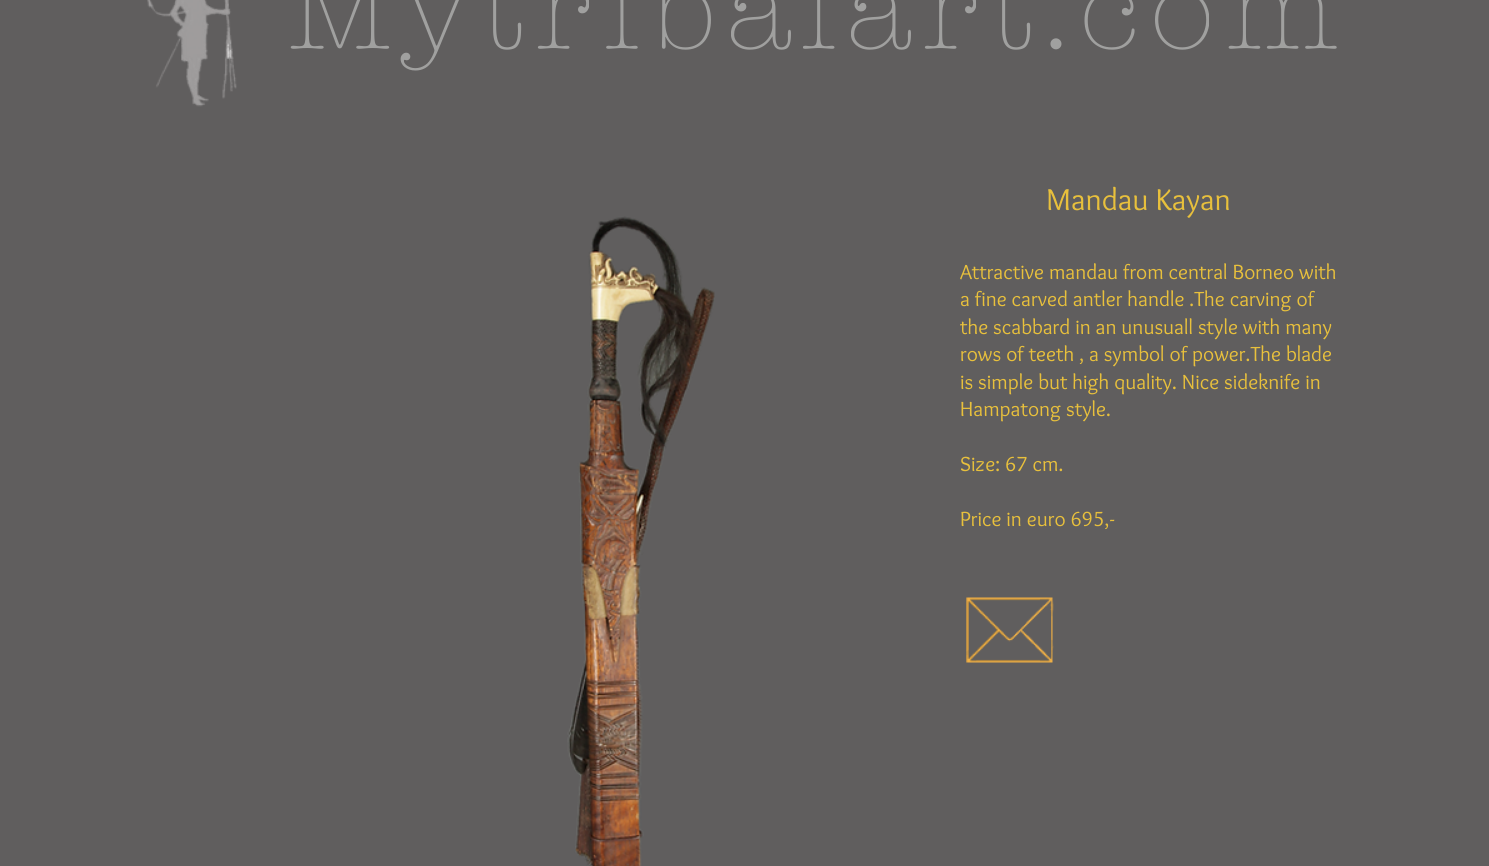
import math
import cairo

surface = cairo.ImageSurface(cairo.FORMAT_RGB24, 1489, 866)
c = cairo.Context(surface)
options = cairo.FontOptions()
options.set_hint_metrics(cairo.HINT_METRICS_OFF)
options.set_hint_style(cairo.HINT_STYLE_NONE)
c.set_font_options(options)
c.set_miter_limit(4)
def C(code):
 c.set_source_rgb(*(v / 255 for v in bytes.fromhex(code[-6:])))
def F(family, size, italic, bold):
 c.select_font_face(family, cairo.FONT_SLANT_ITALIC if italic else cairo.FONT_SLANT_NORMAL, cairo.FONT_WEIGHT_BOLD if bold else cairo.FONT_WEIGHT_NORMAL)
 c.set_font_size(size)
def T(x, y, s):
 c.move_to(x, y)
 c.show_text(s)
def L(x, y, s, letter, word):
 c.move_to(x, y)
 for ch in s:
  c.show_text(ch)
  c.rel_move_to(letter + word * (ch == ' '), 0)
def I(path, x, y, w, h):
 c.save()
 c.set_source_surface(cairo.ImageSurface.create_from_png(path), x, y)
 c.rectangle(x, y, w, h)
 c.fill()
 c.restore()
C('605e5e')
c.paint()
I('1.png',147,0,90,107)
F('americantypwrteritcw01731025 Light',112.5,0,0)
C('a0a09f')
L(287,48,'Mytribalart.com',11.25,0)
F('Overlock',31.25,0,0)
C('e8c03c')
T(1046,210,'Mandau Kayan')
I('2.png',567,216,148,650)
F('Overlock',21.25,0,0)
T(960,279,'Attractive mandau from central Borneo with')
T(960,306,'a fine carved antler handle .The carving of')
T(960,334,'the scabbard in an unusuall style with many')
T(960,361,'rows of teeth , a symbol of power.The blade')
T(960,389,'is simple but high quality. Nice sideknife in')
T(960,416,'Hampatong style.')
T(960,471,'Size: 67 cm.')
T(960,526,'Price in euro 695,-')
I('3.png',966,597,88,66)
surface.write_to_png('o.png')
